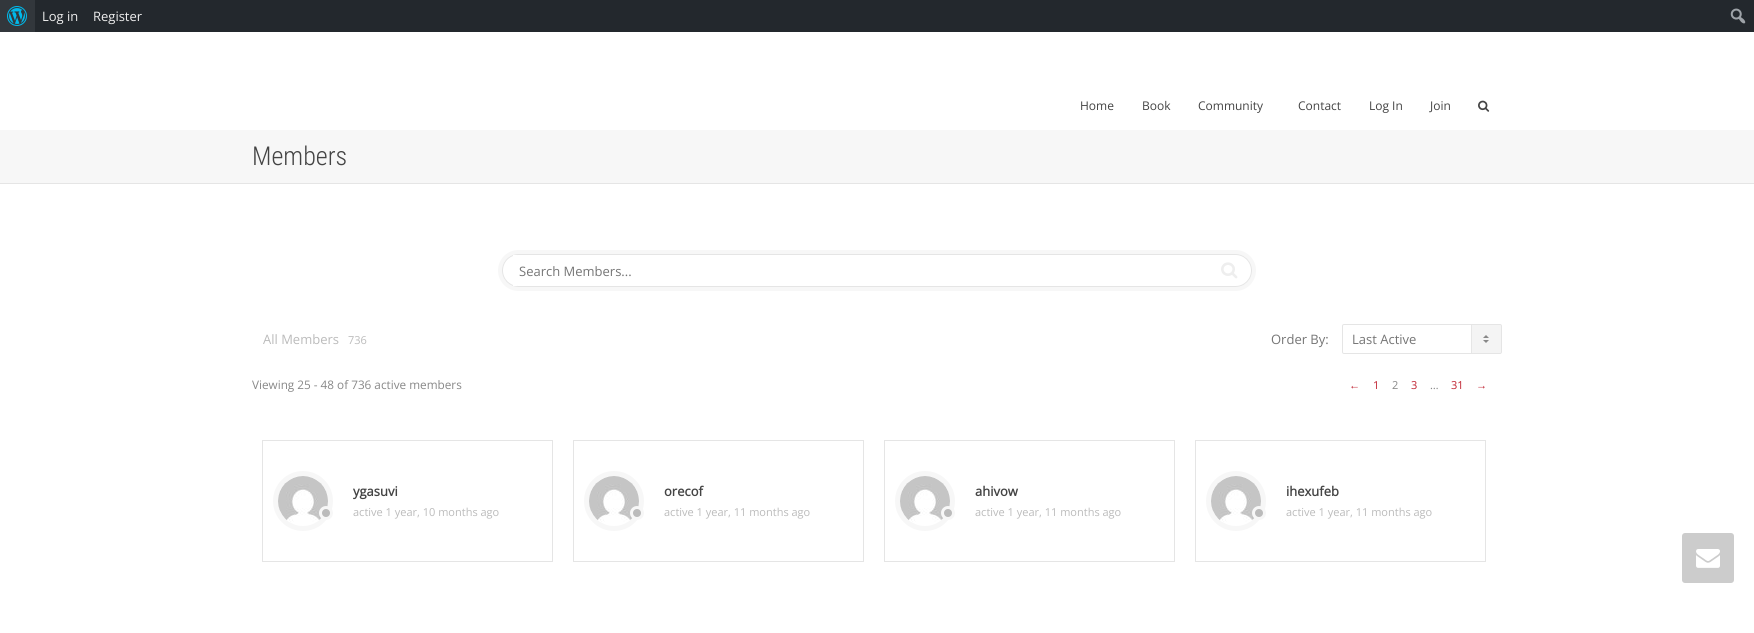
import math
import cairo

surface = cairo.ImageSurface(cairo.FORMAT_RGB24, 1754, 633)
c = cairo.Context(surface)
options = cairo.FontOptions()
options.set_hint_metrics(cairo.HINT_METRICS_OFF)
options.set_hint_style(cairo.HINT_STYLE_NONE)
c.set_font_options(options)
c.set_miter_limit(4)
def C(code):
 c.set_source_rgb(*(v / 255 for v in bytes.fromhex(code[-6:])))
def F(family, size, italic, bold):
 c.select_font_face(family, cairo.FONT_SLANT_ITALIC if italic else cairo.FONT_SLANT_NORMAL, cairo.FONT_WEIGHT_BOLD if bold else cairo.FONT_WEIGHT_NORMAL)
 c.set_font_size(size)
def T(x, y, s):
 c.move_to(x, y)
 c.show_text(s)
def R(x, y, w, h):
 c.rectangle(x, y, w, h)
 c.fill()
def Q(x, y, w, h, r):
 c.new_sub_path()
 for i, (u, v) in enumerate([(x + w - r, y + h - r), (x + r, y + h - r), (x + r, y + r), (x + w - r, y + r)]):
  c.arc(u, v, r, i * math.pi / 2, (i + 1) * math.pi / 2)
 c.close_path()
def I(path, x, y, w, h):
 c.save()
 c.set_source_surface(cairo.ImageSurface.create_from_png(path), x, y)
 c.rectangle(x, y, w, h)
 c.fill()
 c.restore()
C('ffffff')
c.paint()
C('23282d')
R(35,0,1719,32)
C('32373c')
R(0,0,35,32)
I('1.png',7,6,20,20)
F('Open Sans',13,0,0)
C('eeeeee')
T(42,21,'Log in')
T(93,21,'Register')
I('2.png',1730,8,16,16)
F('Open Sans',12,0,0)
C('444444')
T(1080,110,'Home')
T(1142,110,'Book')
T(1198,110,'Community')
T(1298,110,'Contact')
T(1369,110,'Log In')
T(1430,110,'Join')
I('3.png',1478,100,12,12)
C('f7f7f7')
R(0,130,1754,53)
C('e5e5e5')
R(0,183,1754,1)
F('Roboto Condensed Light',26,0,0)
C('444444')
T(252,165,'Members')
Q(500,252,754,37,18.5)
C('f7f7f7')
c.set_line_width(4)
c.stroke()
Q(502.5,254.5,749,32,16)
C('e5e5e5')
c.set_line_width(1)
c.stroke()
C('ffffff')
R(513,255,4,31)
F('Open Sans',13,0,0)
C('757575')
T(519,276,'Search Members...')
I('4.png',1221,262,17,17)
C('bbbbbb')
T(263,344,'All Members')
F('Open Sans',11,0,0)
T(348,344,'736')
F('Open Sans',13,0,0)
C('757575')
T(1271,344,'Order By:')
I('5.png',1471,324,30,30)
Q(1342.5,324.5,159,29,1.5)
C('e5e5e5')
c.stroke()
C('757575')
T(1352,344,'Last Active')
F('Open Sans',11.75,0,0)
C('888888')
T(252,389,'Viewing 25 - 48 of 736 active members')
F('Liberation Serif',11,0,0)
C('bf202f')
T(1349,389,'←')
F('Open Sans',11,0,0)
T(1373,389,'1')
C('888888')
T(1392,389,'2')
C('bf202f')
T(1411,389,'3')
C('888888')
T(1430,389,'…')
C('bf202f')
T(1451,389,'31')
F('Liberation Serif',11,0,0)
T(1476,389,'→')
c.rectangle(262.5,440.5,290,121)
C('e5e5e5')
c.stroke()
c.arc(303,501,27.5,0,2 * math.pi)
C('f7f7f7')
c.set_line_width(5)
c.stroke()
I('6.png',278,476,50,46)
C('bbbbbb')
c.arc(326,513,5.5,0,2 * math.pi)
c.fill_preserve()
C('f7f7f7')
c.set_line_width(3)
c.stroke()
F('Open Sans',13,0,1)
C('444444')
T(353,496,'ygasuvi')
F('Open Sans',11,0,0)
C('bbbbbb')
T(353,516,'active 1 year, 10 months ago')
c.rectangle(573.5,440.5,290,121)
C('e5e5e5')
c.set_line_width(1)
c.stroke()
c.arc(614,501,27.5,0,2 * math.pi)
C('f7f7f7')
c.set_line_width(5)
c.stroke()
I('6.png',589,476,50,46)
C('bbbbbb')
c.arc(637,513,5.5,0,2 * math.pi)
c.fill_preserve()
C('f7f7f7')
c.set_line_width(3)
c.stroke()
F('Open Sans',13,0,1)
C('444444')
T(664,496,'orecof')
F('Open Sans',11,0,0)
C('bbbbbb')
T(664,516,'active 1 year, 11 months ago')
c.rectangle(884.5,440.5,290,121)
C('e5e5e5')
c.set_line_width(1)
c.stroke()
c.arc(925,501,27.5,0,2 * math.pi)
C('f7f7f7')
c.set_line_width(5)
c.stroke()
I('6.png',900,476,50,46)
C('bbbbbb')
c.arc(948,513,5.5,0,2 * math.pi)
c.fill_preserve()
C('f7f7f7')
c.set_line_width(3)
c.stroke()
F('Open Sans',13,0,1)
C('444444')
T(975,496,'ahivow')
F('Open Sans',11,0,0)
C('bbbbbb')
T(975,516,'active 1 year, 11 months ago')
c.rectangle(1195.5,440.5,290,121)
C('e5e5e5')
c.set_line_width(1)
c.stroke()
c.arc(1236,501,27.5,0,2 * math.pi)
C('f7f7f7')
c.set_line_width(5)
c.stroke()
I('6.png',1211,476,50,46)
C('bbbbbb')
c.arc(1259,513,5.5,0,2 * math.pi)
c.fill_preserve()
C('f7f7f7')
c.set_line_width(3)
c.stroke()
F('Open Sans',13,0,1)
C('444444')
T(1286,496,'ihexufeb')
F('Open Sans',11,0,0)
C('bbbbbb')
T(1286,516,'active 1 year, 11 months ago')
C('cccccc')
Q(1682,533,52,50,3)
c.fill()
I('7.png',1696,549,24,19)
surface.write_to_png('o.png')
